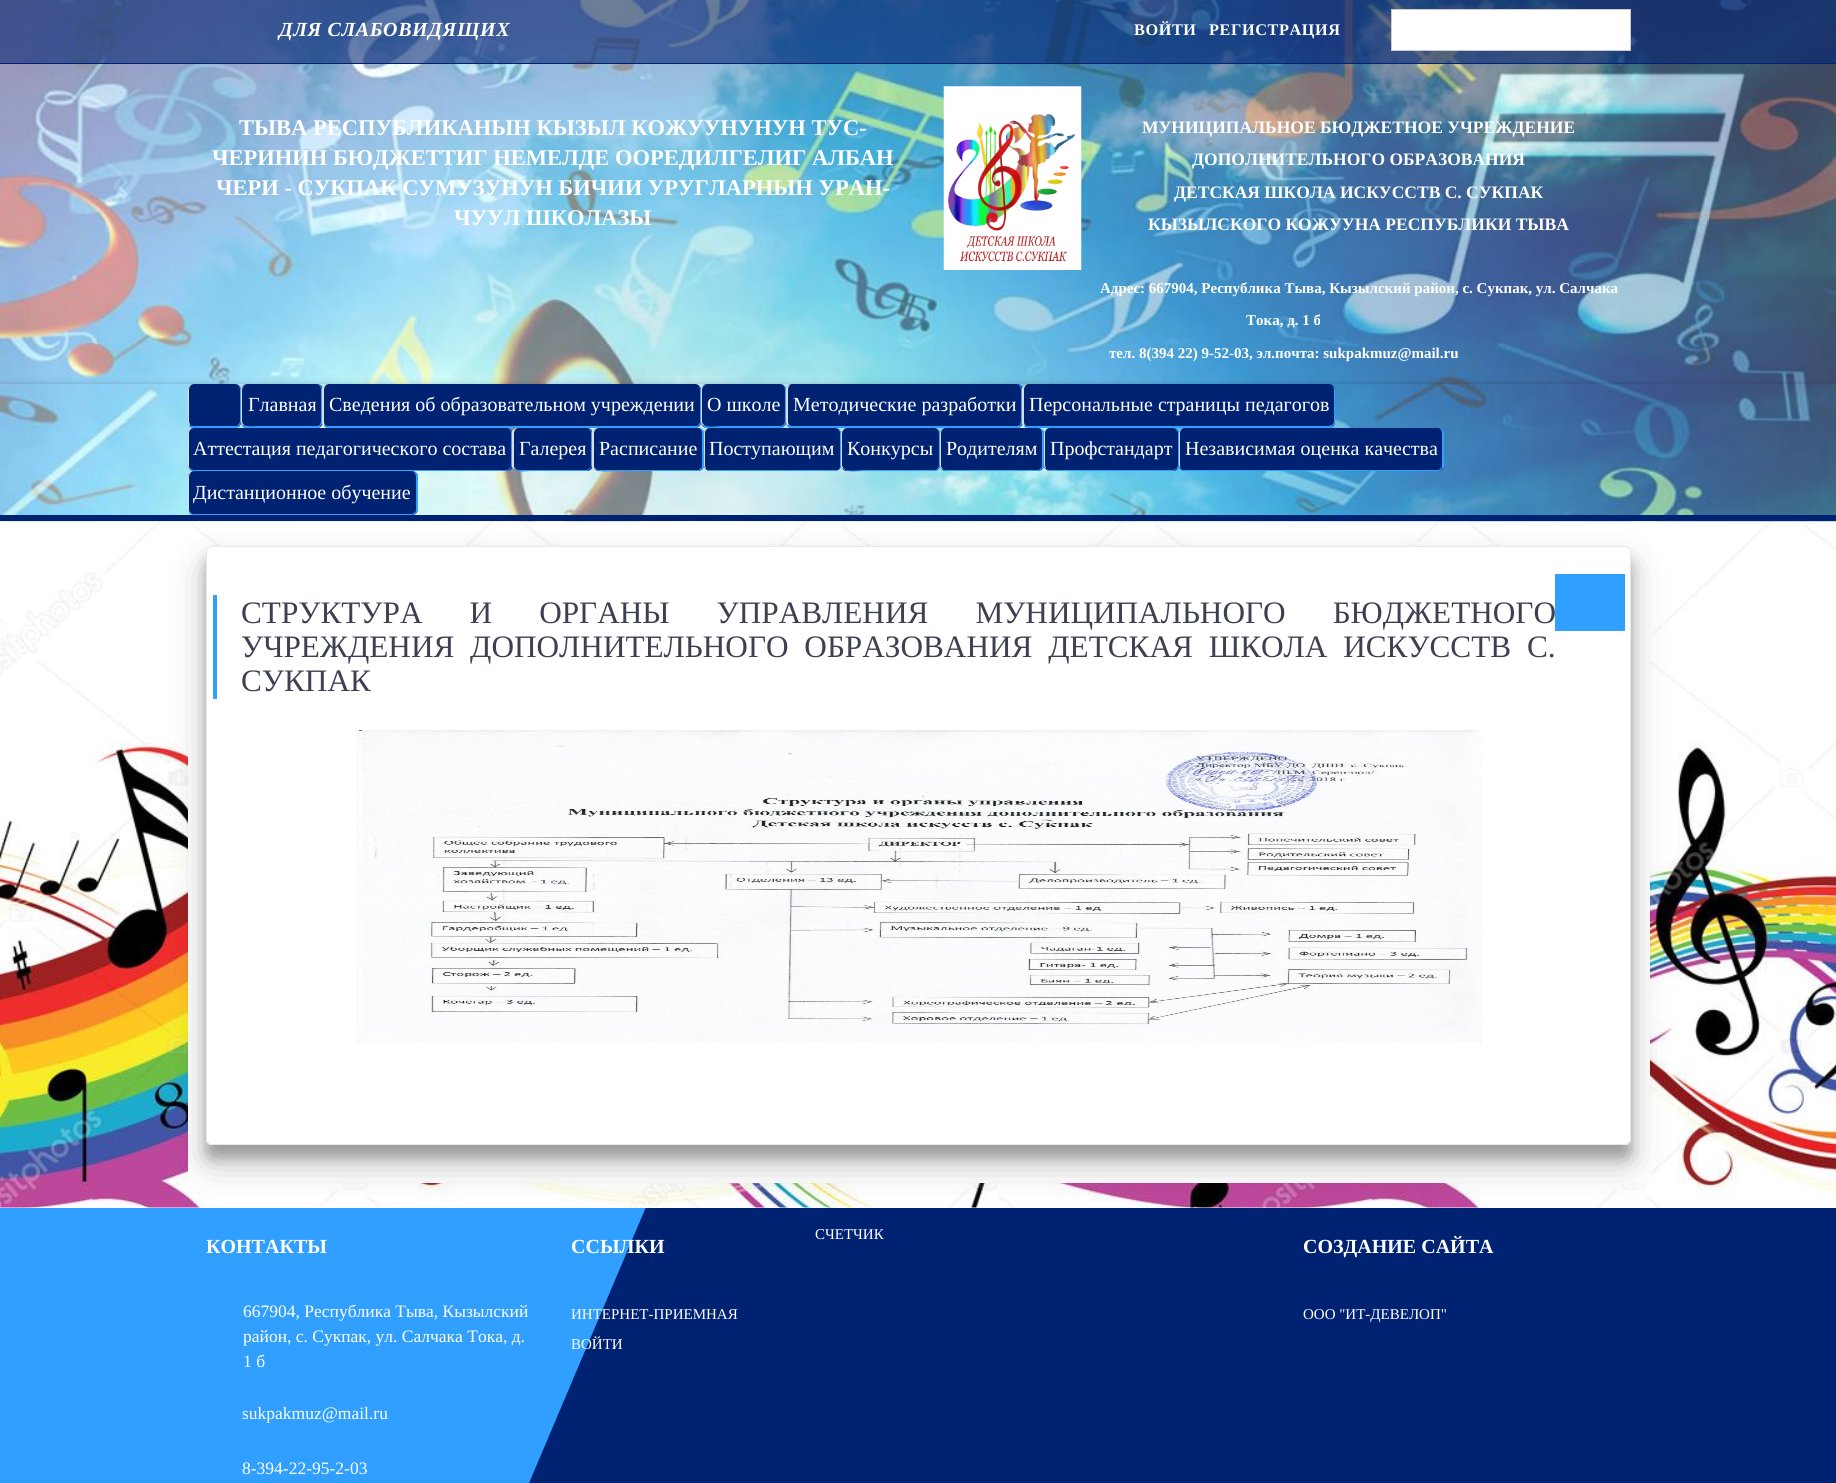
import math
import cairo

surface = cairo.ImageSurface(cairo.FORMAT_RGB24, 1836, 1483)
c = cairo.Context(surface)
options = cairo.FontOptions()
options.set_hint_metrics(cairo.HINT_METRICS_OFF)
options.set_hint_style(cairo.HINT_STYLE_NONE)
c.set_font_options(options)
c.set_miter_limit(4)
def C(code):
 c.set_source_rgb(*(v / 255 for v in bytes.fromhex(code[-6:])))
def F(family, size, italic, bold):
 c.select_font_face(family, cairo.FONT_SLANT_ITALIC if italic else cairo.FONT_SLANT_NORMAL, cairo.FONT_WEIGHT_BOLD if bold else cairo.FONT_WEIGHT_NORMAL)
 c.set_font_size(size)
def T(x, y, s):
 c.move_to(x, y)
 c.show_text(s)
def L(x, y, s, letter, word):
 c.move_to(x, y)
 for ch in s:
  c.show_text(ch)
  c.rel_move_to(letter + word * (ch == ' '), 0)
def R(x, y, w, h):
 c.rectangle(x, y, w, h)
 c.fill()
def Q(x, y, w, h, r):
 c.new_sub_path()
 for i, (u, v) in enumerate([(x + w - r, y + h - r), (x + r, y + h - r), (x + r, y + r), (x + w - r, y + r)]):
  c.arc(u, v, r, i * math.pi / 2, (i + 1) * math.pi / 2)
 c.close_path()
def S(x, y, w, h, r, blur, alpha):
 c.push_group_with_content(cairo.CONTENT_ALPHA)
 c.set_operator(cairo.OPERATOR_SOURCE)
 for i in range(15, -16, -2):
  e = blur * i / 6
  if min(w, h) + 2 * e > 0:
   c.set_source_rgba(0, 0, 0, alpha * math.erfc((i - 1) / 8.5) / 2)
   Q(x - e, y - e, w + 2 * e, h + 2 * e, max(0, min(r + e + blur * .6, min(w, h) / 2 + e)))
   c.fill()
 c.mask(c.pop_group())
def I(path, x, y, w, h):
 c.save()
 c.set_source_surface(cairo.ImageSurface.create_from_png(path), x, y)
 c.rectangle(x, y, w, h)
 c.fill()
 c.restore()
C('ffffff')
c.paint()
I('1.png',0,0,1836,522)
c.set_source_rgba(0,0.133,0.451,0.58)
R(0,0,1836,63)
C('002273')
R(0,63,1836,1)
F('Liberation Serif',20,1,1)
C('ffffff')
L(279,36,'ДЛЯ СЛАБОВИДЯЩИХ',.6,0)
F('Liberation Serif',16.25,0,1)
L(1134,35,'ВОЙТИ',.6,0)
L(1209,35,'РЕГИСТРАЦИЯ',.6,0)
c.rectangle(1391.5,9.5,239,41)
c.fill_preserve()
C('cbcbcb')
c.set_line_width(1)
c.stroke()
F('Liberation Serif',22.5,0,1)
C('ffffff')
T(239,135,'ТЫВА РЕСПУБЛИКАНЫН КЫЗЫЛ КОЖУУНУНУН ТУС-')
T(212,165,'ЧЕРИНИН БЮДЖЕТТИГ НЕМЕЛДЕ ООРЕДИЛГЕЛИГ АЛБАН')
T(216,195,'ЧЕРИ - СУКПАК СУМУЗУНУН БИЧИИ УРУГЛАРНЫН УРАН-')
T(454,225,'ЧУУЛ ШКОЛАЗЫ')
I('2.png',943,86,139,184)
F('Liberation Serif',17.5,0,1)
T(1142,133,'МУНИЦИПАЛЬНОЕ БЮДЖЕТНОЕ УЧРЕЖДЕНИЕ')
T(1192,165,'ДОПОЛНИТЕЛЬНОГО ОБРАЗОВАНИЯ')
T(1174,198,'ДЕТСКАЯ ШКОЛА ИСКУССТВ С. СУКПАК')
T(1148,230,'КЫЗЫЛСКОГО КОЖУУНА РЕСПУБЛИКИ ТЫВА')
F('Liberation Serif',15,0,1)
T(1100,293,'Адрес: 667904, Республика Тыва, Кызылский район, с. Сукпак, ул. Салчака')
T(1246,325,'Тока, д. 1 б')
T(1109,358,'тел. 8(394 22) 9-52-03, эл.почта: sukpakmuz@mail.ru')
c.save()
c.set_fill_rule(cairo.FILL_RULE_EVEN_ODD)
c.new_path()
c.move_to(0,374)
c.line_to(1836,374)
c.line_to(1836,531)
c.line_to(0,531)
c.close_path()
c.move_to(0,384)
c.line_to(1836,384)
c.line_to(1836,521)
c.line_to(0,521)
c.close_path()
c.clip()
C('000000')
S(0,384,1836,137,0,3,.2)
c.restore()
C('002273')
R(0,515,1836,6)
Q(188,384,53,44,6)
c.fill()
C('309fff')
c.new_path()
c.move_to(239,426)
c.curve_to(240,424,241,423,241,421)
c.line_to(241,390)
c.curve_to(241,387,238,384,235,384)
c.curve_to(238,384,240,387,240,390)
c.line_to(240,421)
c.curve_to(240,423,239,424,238,425)
c.close_path()
c.fill()
c.new_path()
c.move_to(191,428)
c.line_to(189,426)
c.line_to(190,425)
c.curve_to(191,426,192,426,194,426)
c.line_to(235,426)
c.curve_to(236,426,238,426,238,425)
c.line_to(239,426)
c.line_to(237,428)
c.close_path()
c.fill()
C('dedddd')
c.new_path()
c.move_to(194,384)
c.curve_to(191,384,189,387,189,390)
c.line_to(189,421)
c.curve_to(189,422,190,424,190,425)
c.line_to(189,426)
c.curve_to(188,424,188,423,188,421)
c.line_to(188,390)
c.curve_to(188,387,190,384,194,384)
c.close_path()
c.fill()
C('002273')
Q(241,384,82,44,6)
c.fill()
C('309fff')
c.new_path()
c.move_to(321,426)
c.curve_to(322,424,322,423,322,421)
c.line_to(322,390)
c.curve_to(322,387,320,384,316,384)
c.curve_to(319,384,321,387,321,390)
c.line_to(321,421)
c.curve_to(321,422,320,424,320,425)
c.close_path()
c.fill()
c.new_path()
c.move_to(245,428)
c.line_to(243,426)
c.line_to(244,425)
c.curve_to(248,427,257,426,259,426)
c.line_to(317,426)
c.line_to(320,425)
c.line_to(321,426)
c.line_to(319,428)
c.close_path()
c.fill()
C('dedddd')
c.new_path()
c.move_to(248,384)
c.curve_to(245,384,242,387,242,390)
c.line_to(242,421)
c.curve_to(242,423,243,424,244,425)
c.line_to(243,426)
c.line_to(241,423)
c.line_to(241,388)
c.curve_to(242,386,245,384,248,384)
c.close_path()
c.fill()
F('Liberation Serif',20,0,0)
C('ffffff')
T(248,411,'Главная')
C('002273')
Q(323,384,378,44,6)
c.fill()
C('309fff')
c.new_path()
c.move_to(699,426)
c.curve_to(700,424,701,423,701,421)
c.line_to(701,390)
c.curve_to(701,387,698,384,695,384)
c.curve_to(698,384,700,387,700,390)
c.line_to(700,421)
c.curve_to(700,423,699,424,698,425)
c.close_path()
c.fill()
c.new_path()
c.move_to(326,428)
c.line_to(324,426)
c.line_to(325,425)
c.curve_to(326,426,328,426,329,426)
c.line_to(695,426)
c.curve_to(696,426,698,426,698,425)
c.line_to(699,426)
c.line_to(697,428)
c.close_path()
c.fill()
C('dedddd')
c.new_path()
c.move_to(329,384)
c.curve_to(326,384,324,387,324,390)
c.line_to(324,421)
c.curve_to(324,422,324,424,325,425)
c.line_to(324,426)
c.line_to(322,424)
c.line_to(322,388)
c.curve_to(324,386,326,384,329,384)
c.close_path()
c.fill()
C('ffffff')
T(329,411,'Сведения об образовательном учреждении')
C('002273')
Q(701,384,85,44,6)
c.fill()
C('309fff')
c.new_path()
c.move_to(784,426)
c.curve_to(785,424,786,423,786,421)
c.line_to(786,390)
c.curve_to(786,387,783,384,780,384)
c.curve_to(783,384,785,387,785,390)
c.line_to(785,421)
c.curve_to(785,423,784,424,783,425)
c.close_path()
c.fill()
c.new_path()
c.move_to(705,428)
c.line_to(703,426)
c.line_to(704,425)
c.curve_to(708,428,718,426,720,426)
c.line_to(781,426)
c.line_to(783,425)
c.line_to(784,426)
c.line_to(782,428)
c.close_path()
c.fill()
C('dedddd')
c.new_path()
c.move_to(708,384)
c.curve_to(705,384,702,387,702,390)
c.line_to(702,421)
c.curve_to(702,423,703,424,704,425)
c.line_to(703,426)
c.line_to(701,423)
c.line_to(701,388)
c.curve_to(702,386,705,384,708,384)
c.close_path()
c.fill()
C('ffffff')
T(707,411,'О школе')
C('002273')
Q(786,384,237,44,6)
c.fill()
C('309fff')
c.new_path()
c.move_to(1021,426)
c.curve_to(1022,424,1022,423,1022,421)
c.line_to(1022,390)
c.curve_to(1022,387,1020,384,1016,384)
c.curve_to(1019,384,1021,387,1021,390)
c.line_to(1021,421)
c.curve_to(1021,422,1020,424,1020,425)
c.close_path()
c.fill()
c.new_path()
c.move_to(790,428)
c.line_to(788,426)
c.line_to(789,425)
c.curve_to(790,425,791,426,792,426)
c.line_to(1017,426)
c.line_to(1020,425)
c.line_to(1021,426)
c.line_to(1019,428)
c.close_path()
c.fill()
C('dedddd')
c.new_path()
c.move_to(792,384)
c.curve_to(790,384,788,387,788,390)
c.line_to(788,421)
c.curve_to(788,422,788,424,789,425)
c.line_to(788,426)
c.line_to(786,423)
c.line_to(786,388)
c.curve_to(787,386,790,384,792,384)
c.close_path()
c.fill()
C('ffffff')
T(793,411,'Методические разработки')
C('002273')
Q(1023,384,312,44,6)
c.fill()
C('309fff')
c.new_path()
c.move_to(1335,421)
c.line_to(1335,390)
c.curve_to(1335,387,1332,384,1329,384)
c.curve_to(1332,384,1334,387,1334,390)
c.line_to(1334,421)
c.curve_to(1334,423,1333,424,1332,425)
c.line_to(1333,426)
c.curve_to(1334,425,1335,423,1335,421)
c.close_path()
c.fill()
c.new_path()
c.move_to(1026,428)
c.line_to(1024,426)
c.line_to(1025,425)
c.curve_to(1026,426,1028,426,1029,426)
c.line_to(1329,426)
c.line_to(1332,425)
c.line_to(1333,426)
c.line_to(1331,428)
c.close_path()
c.fill()
C('dedddd')
c.new_path()
c.move_to(1029,384)
c.curve_to(1026,384,1024,387,1024,390)
c.line_to(1024,421)
c.curve_to(1024,422,1024,424,1025,425)
c.line_to(1024,426)
c.line_to(1022,424)
c.line_to(1022,388)
c.curve_to(1024,386,1026,384,1029,384)
c.close_path()
c.fill()
C('ffffff')
T(1029,411,'Персональные страницы педагогов')
C('002273')
Q(188,428,325,43,6)
c.fill()
C('309fff')
c.new_path()
c.move_to(510,469)
c.curve_to(511,468,512,467,512,465)
c.line_to(512,434)
c.curve_to(512,430,510,428,506,428)
c.curve_to(509,428,511,430,511,434)
c.line_to(511,465)
c.curve_to(511,466,511,468,510,468)
c.close_path()
c.fill()
c.new_path()
c.move_to(190,468)
c.curve_to(191,469,192,470,194,470)
c.line_to(506,470)
c.curve_to(508,470,509,469,510,468)
c.line_to(510,469)
c.curve_to(509,470,508,471,506,471)
c.line_to(194,471)
c.curve_to(192,471,191,470,190,469)
c.close_path()
c.fill()
C('dedddd')
c.new_path()
c.move_to(194,428)
c.curve_to(191,428,189,430,189,434)
c.line_to(189,465)
c.curve_to(189,466,189,468,190,468)
c.line_to(190,469)
c.curve_to(189,468,188,467,188,465)
c.line_to(188,434)
c.curve_to(188,430,190,428,194,428)
c.close_path()
c.fill()
C('ffffff')
T(193,455,'Аттестация педагогического состава')
C('002273')
Q(513,428,80,43,6)
c.fill()
C('309fff')
c.new_path()
c.move_to(590,469)
c.curve_to(591,468,592,467,592,465)
c.line_to(592,434)
c.curve_to(592,430,590,428,586,428)
c.curve_to(589,428,591,430,591,434)
c.line_to(591,465)
c.curve_to(591,466,591,468,590,468)
c.close_path()
c.fill()
c.new_path()
c.move_to(515,468)
c.curve_to(516,469,517,470,519,470)
c.line_to(586,470)
c.curve_to(588,470,589,469,590,468)
c.line_to(590,469)
c.line_to(587,471)
c.line_to(530,471)
c.curve_to(527,471,518,473,514,469)
c.close_path()
c.fill()
C('dedddd')
c.new_path()
c.move_to(519,428)
c.curve_to(516,428,514,430,514,434)
c.line_to(514,465)
c.curve_to(514,466,514,468,515,468)
c.line_to(514,469)
c.line_to(512,467)
c.line_to(512,431)
c.curve_to(514,429,516,428,519,428)
c.close_path()
c.fill()
C('ffffff')
T(519,455,'Галерея')
C('002273')
Q(593,428,111,43,6)
c.fill()
C('309fff')
c.new_path()
c.move_to(704,467)
c.line_to(702,469)
c.line_to(701,468)
c.curve_to(702,468,702,466,702,465)
c.line_to(702,434)
c.curve_to(702,430,700,428,698,428)
c.curve_to(700,428,703,429,704,432)
c.close_path()
c.fill()
c.new_path()
c.move_to(595,468)
c.curve_to(596,469,597,470,599,470)
c.line_to(698,470)
c.curve_to(699,470,700,469,701,468)
c.line_to(702,469)
c.line_to(699,471)
c.line_to(616,471)
c.curve_to(614,471,599,473,594,469)
c.close_path()
c.fill()
C('dedddd')
c.new_path()
c.move_to(599,428)
c.curve_to(596,428,594,430,594,434)
c.line_to(594,465)
c.curve_to(594,466,594,468,595,468)
c.line_to(594,469)
c.line_to(592,467)
c.line_to(592,431)
c.curve_to(594,429,596,428,599,428)
c.close_path()
c.fill()
C('ffffff')
T(599,455,'Расписание')
C('002273')
Q(704,428,137,43,6)
c.fill()
C('309fff')
c.new_path()
c.move_to(839,469)
c.curve_to(840,468,841,466,841,465)
c.line_to(841,434)
c.curve_to(841,430,838,428,835,428)
c.curve_to(838,428,840,430,840,434)
c.line_to(840,465)
c.curve_to(840,466,840,468,839,469)
c.close_path()
c.fill()
c.new_path()
c.move_to(706,469)
c.curve_to(707,470,708,470,710,470)
c.line_to(835,470)
c.curve_to(836,470,838,470,839,469)
c.line_to(836,471)
c.line_to(709,471)
c.close_path()
c.fill()
C('dedddd')
c.new_path()
c.move_to(706,469)
c.curve_to(705,468,704,466,704,465)
c.line_to(704,434)
c.curve_to(704,430,707,428,710,428)
c.curve_to(707,428,705,430,705,434)
c.line_to(705,465)
c.curve_to(705,466,706,468,706,469)
c.close_path()
c.fill()
C('ffffff')
T(709,455,'Поступающим')
C('002273')
Q(841,428,99,43,6)
c.fill()
C('309fff')
c.new_path()
c.move_to(940,465)
c.line_to(940,434)
c.curve_to(940,430,937,428,934,428)
c.curve_to(937,428,939,430,939,434)
c.line_to(939,465)
c.curve_to(939,467,938,468,937,469)
c.line_to(938,469)
c.curve_to(939,468,940,467,940,465)
c.close_path()
c.fill()
c.new_path()
c.move_to(844,469)
c.curve_to(848,472,861,470,862,470)
c.line_to(935,470)
c.line_to(937,469)
c.line_to(938,469)
c.line_to(935,471)
c.line_to(862,471)
c.curve_to(860,471,848,473,843,469)
c.close_path()
c.fill()
C('dedddd')
c.new_path()
c.move_to(848,428)
c.curve_to(845,428,842,430,842,434)
c.line_to(842,465)
c.curve_to(842,466,843,468,844,469)
c.line_to(843,469)
c.line_to(841,467)
c.line_to(841,432)
c.curve_to(842,429,845,428,848,428)
c.close_path()
c.fill()
C('ffffff')
T(847,455,'Конкурсы')
C('002273')
Q(940,428,104,43,6)
c.fill()
C('309fff')
c.new_path()
c.move_to(1044,467)
c.line_to(1042,469)
c.line_to(1041,468)
c.curve_to(1042,468,1042,466,1042,465)
c.line_to(1042,434)
c.curve_to(1042,430,1040,428,1038,428)
c.curve_to(1040,428,1043,429,1044,432)
c.close_path()
c.fill()
c.new_path()
c.move_to(943,469)
c.curve_to(943,470,945,470,946,470)
c.line_to(1038,470)
c.curve_to(1039,470,1040,469,1041,468)
c.line_to(1042,469)
c.line_to(1039,471)
c.line_to(945,471)
c.line_to(942,469)
c.close_path()
c.fill()
C('dedddd')
c.new_path()
c.move_to(943,469)
c.line_to(942,469)
c.curve_to(941,468,940,467,940,465)
c.line_to(940,434)
c.curve_to(940,430,943,428,946,428)
c.curve_to(943,428,941,430,941,434)
c.line_to(941,465)
c.curve_to(941,467,942,468,943,469)
c.close_path()
c.fill()
C('ffffff')
T(946,455,'Родителям')
C('002273')
Q(1044,428,135,43,6)
c.fill()
C('309fff')
c.new_path()
c.move_to(1179,467)
c.line_to(1177,469)
c.line_to(1176,469)
c.curve_to(1177,468,1178,466,1178,465)
c.line_to(1178,434)
c.curve_to(1178,430,1175,428,1172,428)
c.curve_to(1175,428,1178,429,1179,432)
c.close_path()
c.fill()
c.new_path()
c.move_to(1046,469)
c.line_to(1049,470)
c.line_to(1173,470)
c.line_to(1176,469)
c.line_to(1177,469)
c.line_to(1173,471)
c.line_to(1049,471)
c.close_path()
c.fill()
C('dedddd')
c.new_path()
c.move_to(1046,469)
c.curve_to(1045,468,1044,466,1044,465)
c.line_to(1044,434)
c.curve_to(1044,430,1047,428,1050,428)
c.curve_to(1047,428,1045,430,1045,434)
c.line_to(1045,465)
c.curve_to(1045,466,1046,468,1046,469)
c.close_path()
c.fill()
C('ffffff')
T(1050,455,'Профстандарт')
C('002273')
Q(1179,428,265,43,6)
c.fill()
C('309fff')
c.new_path()
c.move_to(1444,467)
c.line_to(1442,469)
c.line_to(1441,468)
c.curve_to(1442,468,1442,466,1442,465)
c.line_to(1442,434)
c.curve_to(1442,430,1440,428,1438,428)
c.curve_to(1440,428,1443,429,1444,432)
c.close_path()
c.fill()
c.new_path()
c.move_to(1181,469)
c.curve_to(1182,470,1184,470,1185,470)
c.line_to(1438,470)
c.curve_to(1439,470,1440,469,1441,468)
c.line_to(1442,469)
c.line_to(1439,471)
c.line_to(1185,471)
c.curve_to(1183,471,1182,470,1181,469)
c.close_path()
c.fill()
C('dedddd')
c.new_path()
c.move_to(1181,469)
c.curve_to(1180,468,1179,466,1179,465)
c.line_to(1179,434)
c.curve_to(1179,430,1182,428,1185,428)
c.curve_to(1182,428,1180,430,1180,434)
c.line_to(1180,465)
c.curve_to(1180,466,1180,468,1181,469)
c.close_path()
c.fill()
C('ffffff')
T(1185,455,'Независимая оценка качества')
I('3.png',0,521,1836,687)
R(188,546,1462,637)
c.save()
c.set_fill_rule(cairo.FILL_RULE_EVEN_ODD)
c.new_path()
c.move_to(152,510)
c.line_to(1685,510)
c.line_to(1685,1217)
c.line_to(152,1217)
c.close_path()
c.move_to(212,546)
c.line_to(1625,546)
c.curve_to(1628.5,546,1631,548.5,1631,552)
c.line_to(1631,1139)
c.curve_to(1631,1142.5,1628.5,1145,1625,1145)
c.line_to(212,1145)
c.curve_to(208.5,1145,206,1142.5,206,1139)
c.line_to(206,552)
c.curve_to(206,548.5,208.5,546,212,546)
c.close_path()
c.clip()
C('000000')
S(206,564,1425,599,6,17.5,.25)
c.restore()
C('002273')
Q(188,471,230,44,6)
c.fill()
C('309fff')
c.new_path()
c.move_to(415,512)
c.curve_to(416,512,416,510,416,509)
c.line_to(416,478)
c.curve_to(416,475,415,472,412,471)
c.line_to(413,471)
c.curve_to(415,472,417,473,418,475)
c.line_to(418,511)
c.line_to(416,513)
c.close_path()
c.fill()
c.new_path()
c.move_to(190,512)
c.curve_to(191,513,192,514,194,514)
c.line_to(411,514)
c.curve_to(413,514,414,513,415,512)
c.line_to(416,513)
c.curve_to(415,514,413,515,411,515)
c.line_to(194,515)
c.curve_to(192,515,190,514,189,513)
c.close_path()
c.fill()
C('dedddd')
c.new_path()
c.move_to(193,471)
c.curve_to(190,472,189,475,189,478)
c.line_to(189,509)
c.curve_to(189,510,189,512,190,512)
c.line_to(189,513)
c.curve_to(188,512,188,510,188,509)
c.line_to(188,478)
c.curve_to(188,475,189,472,192,471)
c.close_path()
c.fill()
C('ffffff')
T(193,499,'Дистанционное обучение')
c.save()
c.set_fill_rule(cairo.FILL_RULE_EVEN_ODD)
c.new_path()
c.move_to(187,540)
c.line_to(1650,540)
c.line_to(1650,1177)
c.line_to(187,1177)
c.close_path()
c.move_to(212,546)
c.line_to(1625,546)
c.curve_to(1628.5,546,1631,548.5,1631,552)
c.line_to(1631,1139)
c.curve_to(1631,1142.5,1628.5,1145,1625,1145)
c.line_to(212,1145)
c.curve_to(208.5,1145,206,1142.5,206,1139)
c.line_to(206,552)
c.curve_to(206,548.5,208.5,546,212,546)
c.close_path()
c.clip()
C('000000')
S(206,559,1425,599,6,6,.22)
c.restore()
Q(206.5,546.5,1424,598,5.5)
C('e8e8e8')
c.stroke()
C('309fff')
R(213,595,4,104)
F('Liberation Serif',31.25,0,0)
C('3d4051')
L(241,623,'СТРУКТУРА И ОРГАНЫ УПРАВЛЕНИЯ МУНИЦИПАЛЬНОГО БЮДЖЕТНОГО',0,39.25)
L(241,657,'УЧРЕЖДЕНИЯ ДОПОЛНИТЕЛЬНОГО ОБРАЗОВАНИЯ ДЕТСКАЯ ШКОЛА ИСКУССТВ С.',0,8)
T(241,691,'СУКПАК')
C('309fff')
R(1555,574,70,57)
I('4.png',356,730,1126,313)
C('002273')
R(529,1208,1307,275)
c.save()
c.rectangle(0,1208,1836,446)
c.clip()
C('309fff')
c.new_path()
c.move_to(51,954)
c.line_to(646,1207)
c.line_to(357,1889)
c.line_to(-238,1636)
c.close_path()
c.fill()
c.restore()
F('Liberation Serif',15,0,0)
C('ffffff')
T(815,1239,'СЧЕТЧИК')
F('Liberation Serif',20,0,1)
T(206,1253,'КОНТАКТЫ')
F('Liberation Serif',17.5,0,0)
T(243,1317,'667904, Республика Тыва, Кызылский')
T(243,1342,'район, с. Сукпак, ул. Салчака Тока, д.')
T(243,1367,'1 б')
T(242,1419,'sukpakmuz@mail.ru')
T(242,1474,'8-394-22-95-2-03')
F('Liberation Serif',20,0,1)
T(571,1253,'ССЫЛКИ')
F('Liberation Serif',15,0,0)
T(571,1319,'ИНТЕРНЕТ-ПРИЕМНАЯ')
T(571,1349,'ВОЙТИ')
F('Liberation Serif',20,0,1)
T(1303,1253,'СОЗДАНИЕ САЙТА')
F('Liberation Serif',15,0,0)
T(1303,1319,'ООО "ИТ-ДЕВЕЛОП"')
surface.write_to_png('o.png')
